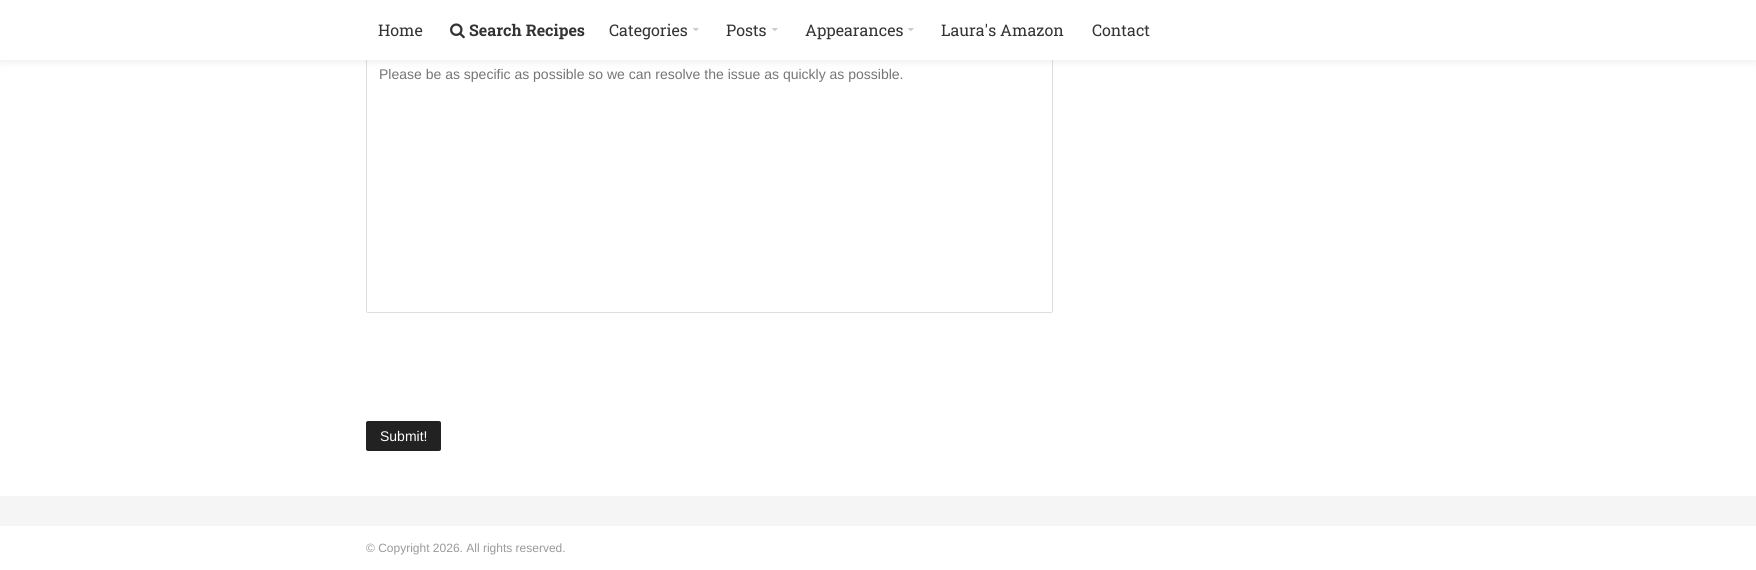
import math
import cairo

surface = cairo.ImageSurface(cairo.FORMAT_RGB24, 1756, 570)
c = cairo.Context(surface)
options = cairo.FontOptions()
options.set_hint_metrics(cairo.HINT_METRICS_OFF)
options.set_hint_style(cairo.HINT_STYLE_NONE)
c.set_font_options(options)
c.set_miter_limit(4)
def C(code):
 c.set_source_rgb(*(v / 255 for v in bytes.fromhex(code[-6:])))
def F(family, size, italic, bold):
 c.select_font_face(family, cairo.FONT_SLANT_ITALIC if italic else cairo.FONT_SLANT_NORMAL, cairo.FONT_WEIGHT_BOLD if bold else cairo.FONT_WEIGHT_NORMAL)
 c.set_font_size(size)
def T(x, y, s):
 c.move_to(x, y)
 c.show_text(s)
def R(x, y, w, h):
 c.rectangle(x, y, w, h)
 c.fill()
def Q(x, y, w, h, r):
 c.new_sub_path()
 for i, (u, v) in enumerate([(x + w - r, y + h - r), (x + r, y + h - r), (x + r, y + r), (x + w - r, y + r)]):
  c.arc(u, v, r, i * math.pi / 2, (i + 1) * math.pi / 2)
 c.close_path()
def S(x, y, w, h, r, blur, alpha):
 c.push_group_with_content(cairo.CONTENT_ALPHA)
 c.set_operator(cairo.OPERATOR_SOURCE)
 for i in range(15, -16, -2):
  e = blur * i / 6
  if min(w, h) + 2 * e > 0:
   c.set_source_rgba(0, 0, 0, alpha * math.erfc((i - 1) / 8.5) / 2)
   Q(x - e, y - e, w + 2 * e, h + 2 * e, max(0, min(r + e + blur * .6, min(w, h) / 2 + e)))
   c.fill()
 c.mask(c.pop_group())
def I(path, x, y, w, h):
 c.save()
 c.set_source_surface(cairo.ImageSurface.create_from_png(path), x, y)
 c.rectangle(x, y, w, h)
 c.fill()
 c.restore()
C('ffffff')
c.paint()
Q(366.5,51.5,686,261,1.5)
C('dddddd')
c.set_line_width(1)
c.stroke()
C('000000')
S(0,0,1756,60,0,5,.1)
C('ffffff')
R(0,0,1756,60)
F('Roboto Slab',16,0,0)
C('333333')
T(378,36,'Home')
I('1.png',450,23,15,16)
F('Roboto Slab',16,0,1)
T(469,36,'Search Recipes')
F('Roboto Slab',16,0,0)
T(609,36,'Categories')
I('2.png',693,28,6,3)
T(726,36,'Posts')
I('2.png',772,28,6,3)
T(805,36,'Appearances')
I('2.png',908,28,6,3)
T(941,36,'Laura\'s Amazon')
T(1092,36,'Contact')
F('Liberation Sans',14,0,0)
C('757575')
T(379,79,'Please be as specific as possible so we can resolve the issue as quickly as possible.')
C('222222')
Q(366,421,75,30,2)
c.fill()
C('ffffff')
T(380,441,'Submit!')
C('f5f5f5')
R(0,496,1756,30)
F('Liberation Sans',12,0,0)
C('999999')
T(366,552,'© Copyright 2026. All rights reserved.')
surface.write_to_png('o.png')
